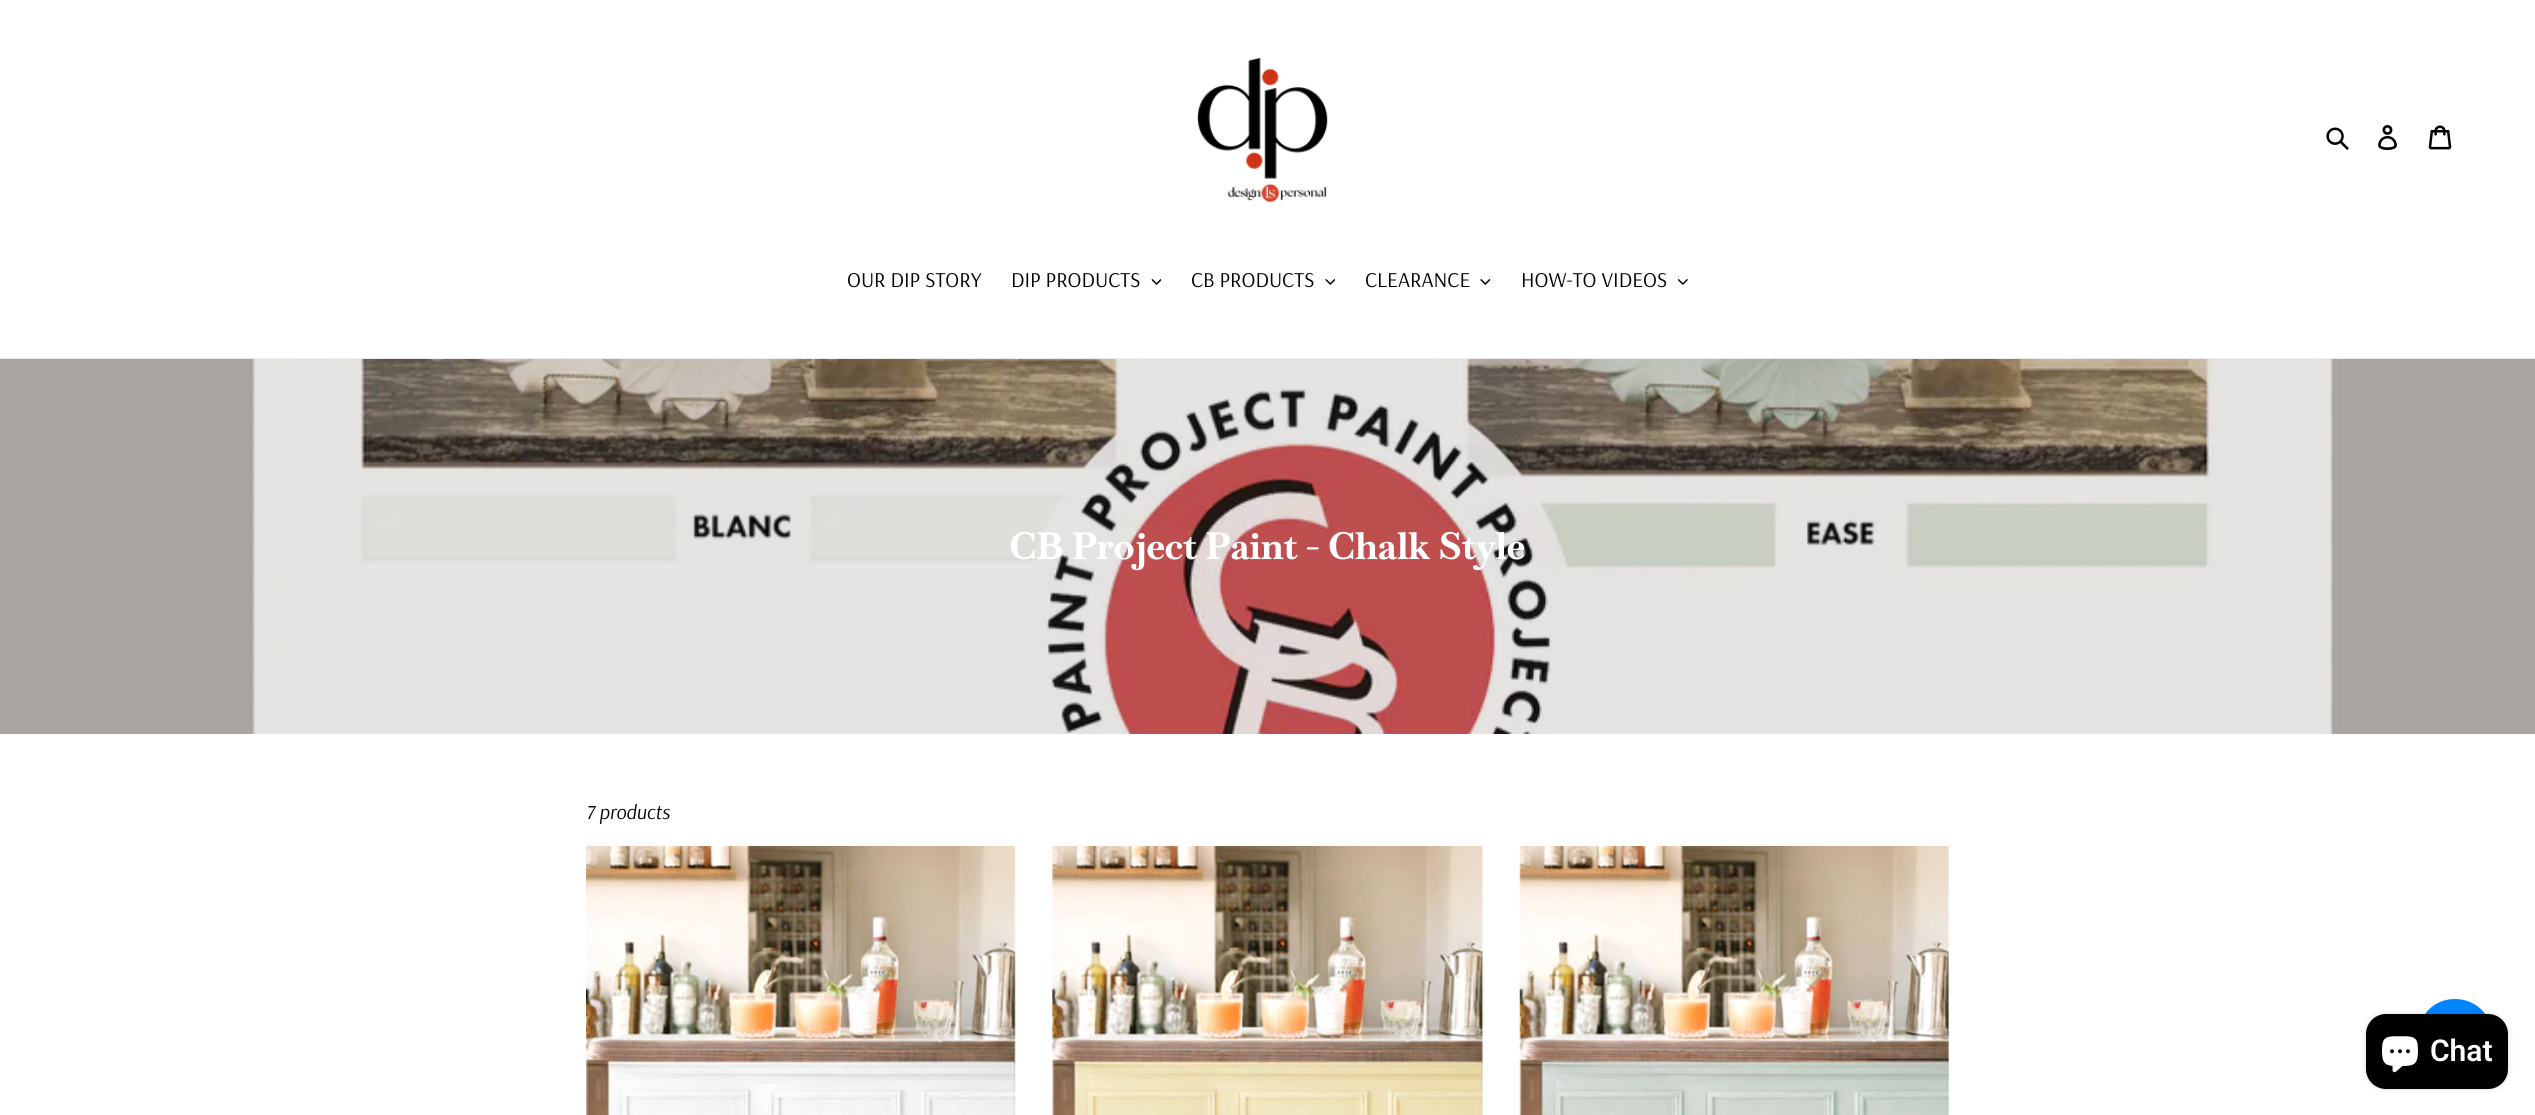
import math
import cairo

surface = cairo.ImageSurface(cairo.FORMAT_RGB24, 2535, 1115)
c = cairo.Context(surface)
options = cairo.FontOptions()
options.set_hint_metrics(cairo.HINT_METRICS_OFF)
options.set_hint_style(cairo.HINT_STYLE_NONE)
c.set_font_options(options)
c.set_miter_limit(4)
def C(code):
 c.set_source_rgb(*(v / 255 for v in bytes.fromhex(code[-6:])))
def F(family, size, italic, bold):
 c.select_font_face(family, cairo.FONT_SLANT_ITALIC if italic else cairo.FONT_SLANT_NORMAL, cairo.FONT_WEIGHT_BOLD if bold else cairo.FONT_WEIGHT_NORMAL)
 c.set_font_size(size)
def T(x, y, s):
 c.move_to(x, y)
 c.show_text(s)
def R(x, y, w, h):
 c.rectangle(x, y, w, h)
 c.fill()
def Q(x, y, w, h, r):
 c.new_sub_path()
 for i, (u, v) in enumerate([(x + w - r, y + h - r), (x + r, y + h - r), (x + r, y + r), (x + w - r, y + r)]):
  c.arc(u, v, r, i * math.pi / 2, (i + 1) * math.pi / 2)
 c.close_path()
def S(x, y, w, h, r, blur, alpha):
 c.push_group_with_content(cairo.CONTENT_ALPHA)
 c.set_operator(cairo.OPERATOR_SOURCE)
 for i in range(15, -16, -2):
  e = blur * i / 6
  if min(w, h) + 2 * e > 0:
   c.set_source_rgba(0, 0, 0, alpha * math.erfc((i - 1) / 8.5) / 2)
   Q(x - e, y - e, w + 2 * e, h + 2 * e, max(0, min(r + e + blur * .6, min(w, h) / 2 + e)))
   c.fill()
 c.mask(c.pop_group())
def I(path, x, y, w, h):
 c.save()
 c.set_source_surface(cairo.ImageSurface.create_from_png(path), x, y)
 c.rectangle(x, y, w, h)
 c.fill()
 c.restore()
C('ffffff')
c.paint()
I('1.png',1197,57,131,146)
I('2.png',2326,127,23,23)
I('3.png',2378,125,19,25)
I('4.png',2428,125,24,25)
C('ebebeb')
R(0,358,2535,1)
F('Arsenal',21.25,0,0)
C('000000')
T(847,287,'OUR DIP STORY')
T(1011,287,'DIP PRODUCTS')
I('5.png',1151,279,10,6)
T(1191,287,'CB PRODUCTS')
I('6.png',1325,279,10,6)
T(1365,287,'CLEARANCE')
I('7.png',1480,279,11,6)
T(1521,287,'HOW-TO VIDEOS')
I('8.png',1678,279,10,6)
I('9.png',0,359,2535,375)
F('Baskervville',37.5,0,1)
C('ffffff')
T(1009,559,'CB Project Paint - Chalk Style')
F('Arsenal',20,1,0)
C('000000')
T(586,819,'7 products')
I('10.png',586,846,430,269)
I('11.png',1052,846,432,269)
I('12.png',1519,846,430,269)
C('0084ff')
c.new_path()
c.move_to(2455,999)
c.curve_to(2422,999,2406,1038,2432,1058)
c.line_to(2432,1071)
c.line_to(2445,1065)
c.curve_to(2448,1065,2451,1066,2455,1066)
c.curve_to(2475,1066,2491,1051,2491,1032)
c.curve_to(2491,1014,2475,999,2455,999)
c.close_path()
c.fill()
C('000000')
S(2366,1014,142,75,20,3,.15)
C('000000')
Q(2366,1014,142,75,20)
c.fill()
I('13.png',2382,1036,36,37)
F('Roboto SemiBold',30,0,0)
C('ffffff')
T(2430,1061,'Chat')
surface.write_to_png('o.png')
